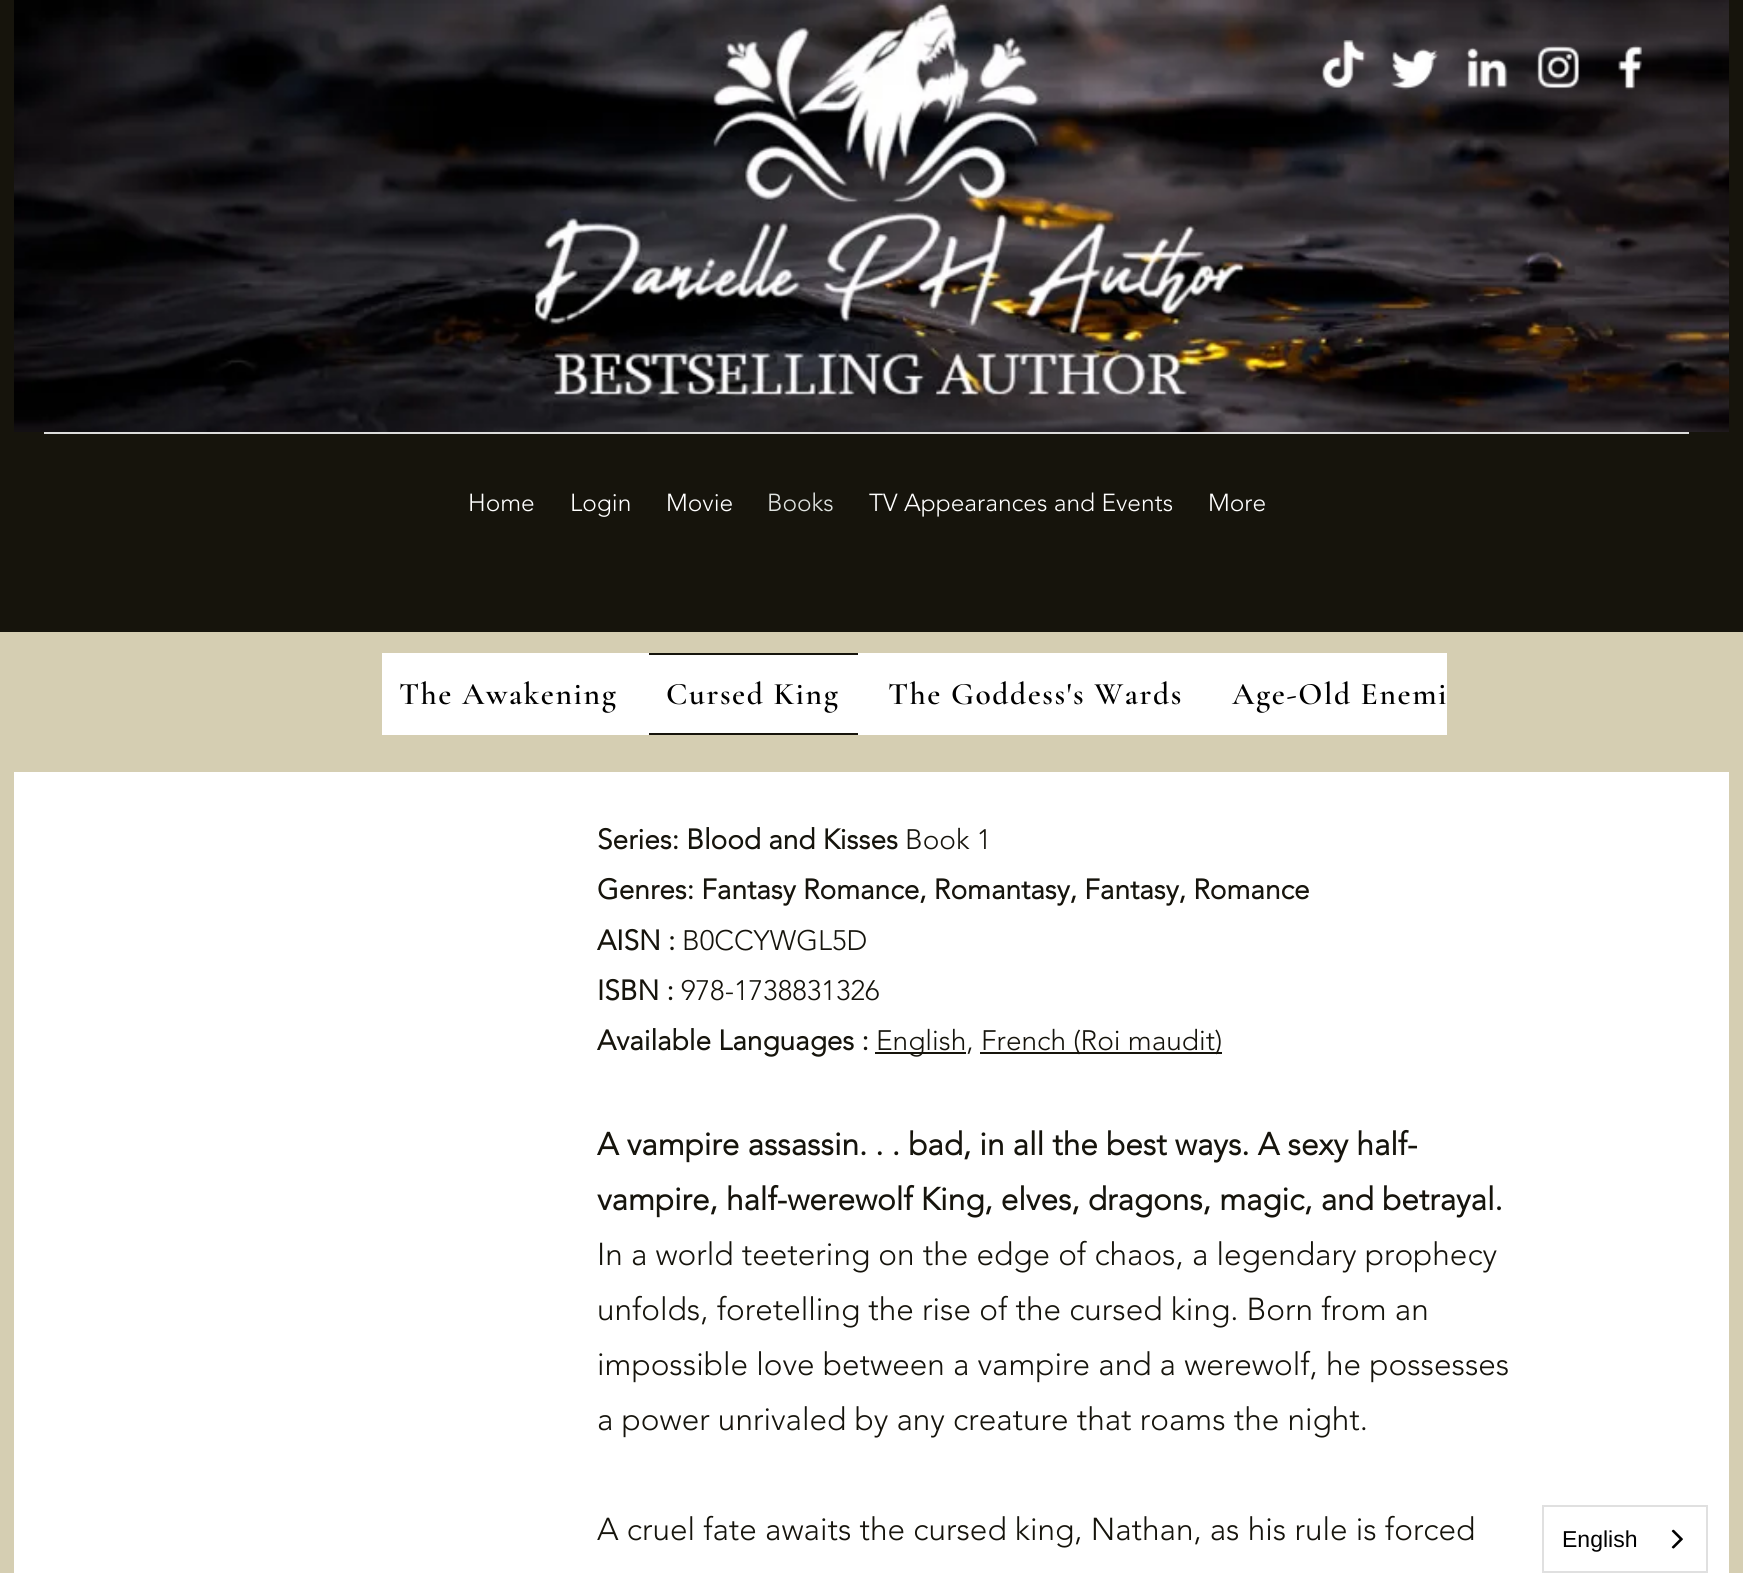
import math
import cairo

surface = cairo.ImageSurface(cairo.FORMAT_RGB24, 1743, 1573)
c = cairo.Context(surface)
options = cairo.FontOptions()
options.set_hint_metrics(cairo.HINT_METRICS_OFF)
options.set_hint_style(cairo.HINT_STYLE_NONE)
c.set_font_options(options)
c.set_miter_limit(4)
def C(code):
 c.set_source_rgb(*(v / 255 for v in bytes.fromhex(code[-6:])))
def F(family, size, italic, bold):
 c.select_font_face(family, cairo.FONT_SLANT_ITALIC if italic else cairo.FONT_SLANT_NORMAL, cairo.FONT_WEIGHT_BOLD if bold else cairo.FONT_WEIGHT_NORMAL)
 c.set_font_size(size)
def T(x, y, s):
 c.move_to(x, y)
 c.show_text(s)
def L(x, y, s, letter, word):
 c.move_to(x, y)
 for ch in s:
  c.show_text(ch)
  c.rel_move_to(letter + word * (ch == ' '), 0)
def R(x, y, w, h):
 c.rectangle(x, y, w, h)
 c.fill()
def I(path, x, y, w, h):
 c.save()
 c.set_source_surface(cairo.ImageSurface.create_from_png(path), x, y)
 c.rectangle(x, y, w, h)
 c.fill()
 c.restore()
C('d5ceb2')
c.paint()
C('16140c')
R(0,0,1743,632)
I('1.png',14,0,1715,432)
I('2.png',1321,40,45,48)
I('3.png',1391,48,48,42)
I('4.png',1466,47,42,41)
I('5.png',1536,45,44,44)
I('6.png',1618,45,24,45)
C('dcdcdb')
R(44,432,1645,2)
F('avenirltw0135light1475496 Light',24.5,0,0)
C('ffffff')
T(468,511,'Home')
T(570,511,'Login')
T(666,511,'Movie')
C('e0e4e1')
T(767,511,'Books')
C('ffffff')
T(869,511,'TV Appearances and Events')
T(1208,511,'More')
R(382,653,1065,82)
F('Cormorant Garamond SemiBold',31.5,0,0)
C('000000')
L(399,704,'The Awakening',1.6,0)
C('16140c')
R(649,653,209,2)
R(649,733,209,2)
C('000000')
L(666,704,'Cursed King',1.6,0)
L(888,704,'The Goddess\'s Wards',1.6,0)
L(1232,704,'Age-Old Enemi',1.6,0)
C('ffffff')
R(14,772,1715,801)
F('avenirltw0135light1475496',28,0,1)
C('16140c')
T(597,849,'Series: Blood and Kisses')
F('avenirltw0135light1475496 Light',28,0,0)
T(905,849,'Book 1')
F('avenirltw0135light1475496',28,0,1)
T(597,899,'Genres: Fantasy Romance, Romantasy, Fantasy, Romance')
T(597,950,'AISN :')
F('avenirltw0135light1475496 Light',28,0,0)
T(682,950,'B0CCYWGL5D')
F('avenirltw0135light1475496',28,0,1)
T(597,1000,'ISBN :')
F('avenirltw0135light1475496 Light',28,0,0)
T(681,1000,'978-1738831326')
F('avenirltw0135light1475496',28,0,1)
T(597,1050,'Available Languages :')
R(875,1052,91,2)
F('avenirltw0135light1475496 Light',28,0,0)
T(876,1050,'English,')
R(980,1052,242,2)
T(981,1050,'French (Roi maudit)')
F('avenirltw0135light1475496',31.5,0,1)
T(597,1155,'A vampire assassin. . . bad, in all the best ways. A sexy half-')
T(597,1210,'vampire, half-werewolf King, elves, dragons, magic, and betrayal.')
F('avenirltw0135light1475496 Light',31.5,0,0)
T(597,1265,'In a world teetering on the edge of chaos, a legendary prophecy')
T(597,1320,'unfolds, foretelling the rise of the cursed king. Born from an')
T(597,1375,'impossible love between a vampire and a werewolf, he possesses')
T(597,1430,'a power unrivaled by any creature that roams the night.')
T(597,1540,'A cruel fate awaits the cursed king, Nathan, as his rule is forced')
c.rectangle(1543,1506,164,66)
C('e0e0e0')
c.stroke()
F('Liberation Sans',23,0,0)
C('000000')
T(1562,1547,'English')
I('7.png',1671,1529,12,20)
surface.write_to_png('o.png')
